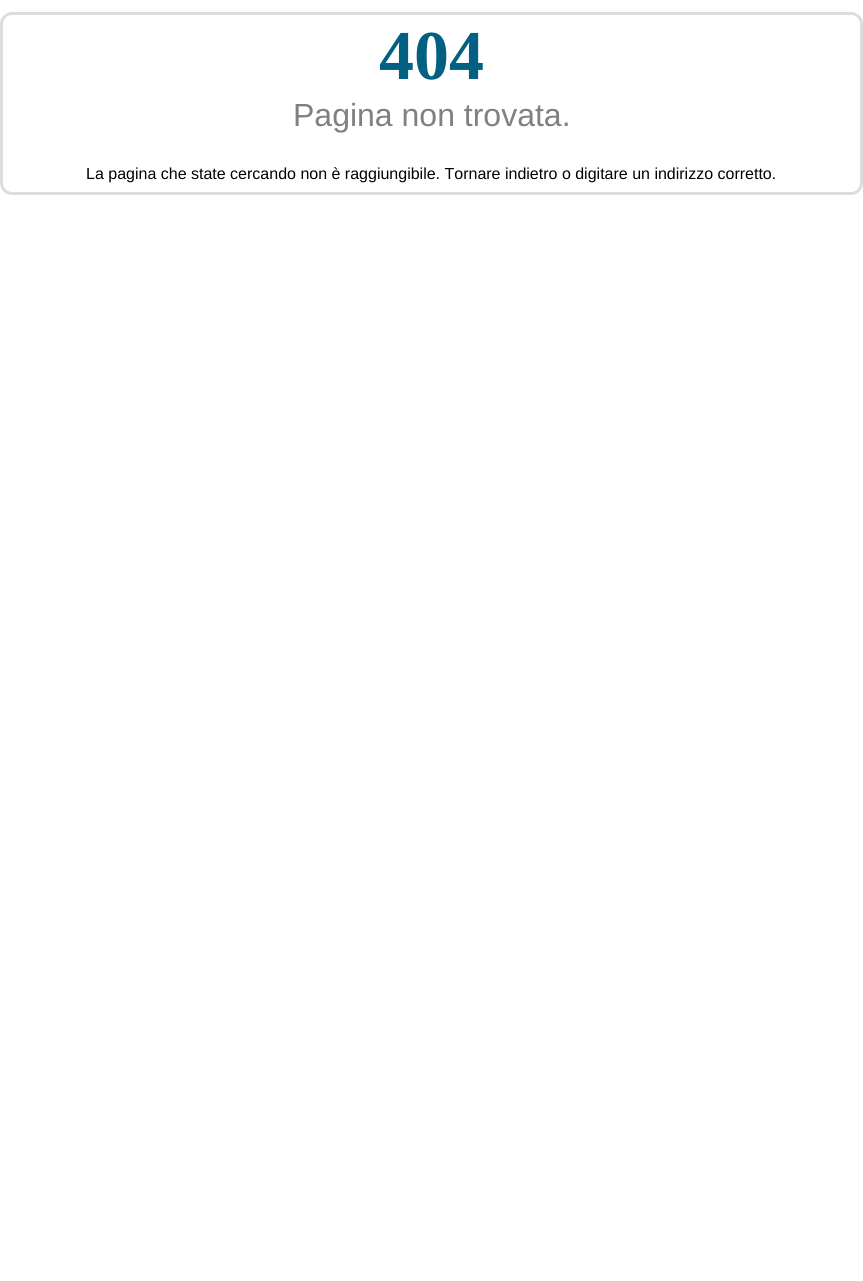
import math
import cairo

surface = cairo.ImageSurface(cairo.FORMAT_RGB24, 863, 1281)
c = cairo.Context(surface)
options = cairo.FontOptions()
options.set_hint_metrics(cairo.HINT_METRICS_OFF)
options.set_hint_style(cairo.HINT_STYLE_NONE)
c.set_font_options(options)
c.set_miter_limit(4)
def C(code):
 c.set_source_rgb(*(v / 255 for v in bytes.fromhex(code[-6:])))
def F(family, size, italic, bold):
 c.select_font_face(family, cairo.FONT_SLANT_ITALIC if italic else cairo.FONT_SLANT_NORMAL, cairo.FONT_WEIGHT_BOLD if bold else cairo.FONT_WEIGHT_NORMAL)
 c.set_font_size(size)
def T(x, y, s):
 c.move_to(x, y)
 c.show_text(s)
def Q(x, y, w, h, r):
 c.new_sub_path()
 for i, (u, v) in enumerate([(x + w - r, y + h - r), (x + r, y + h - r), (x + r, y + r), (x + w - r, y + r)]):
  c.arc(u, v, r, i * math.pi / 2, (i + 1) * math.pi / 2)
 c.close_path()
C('ffffff')
c.paint()
Q(1.5,13.5,860,180,10.5)
C('dddddd')
c.set_line_width(3)
c.stroke()
F('Liberation Serif',70,0,1)
C('036082')
T(379,79,'404')
F('Liberation Sans',32,0,0)
C('808080')
T(293,126,'Pagina non trovata.')
F('Liberation Sans',16,0,0)
C('000000')
T(86,179,'La pagina che state cercando non è raggiungibile. Tornare indietro o digitare un indirizzo corretto.')
surface.write_to_png('o.png')
